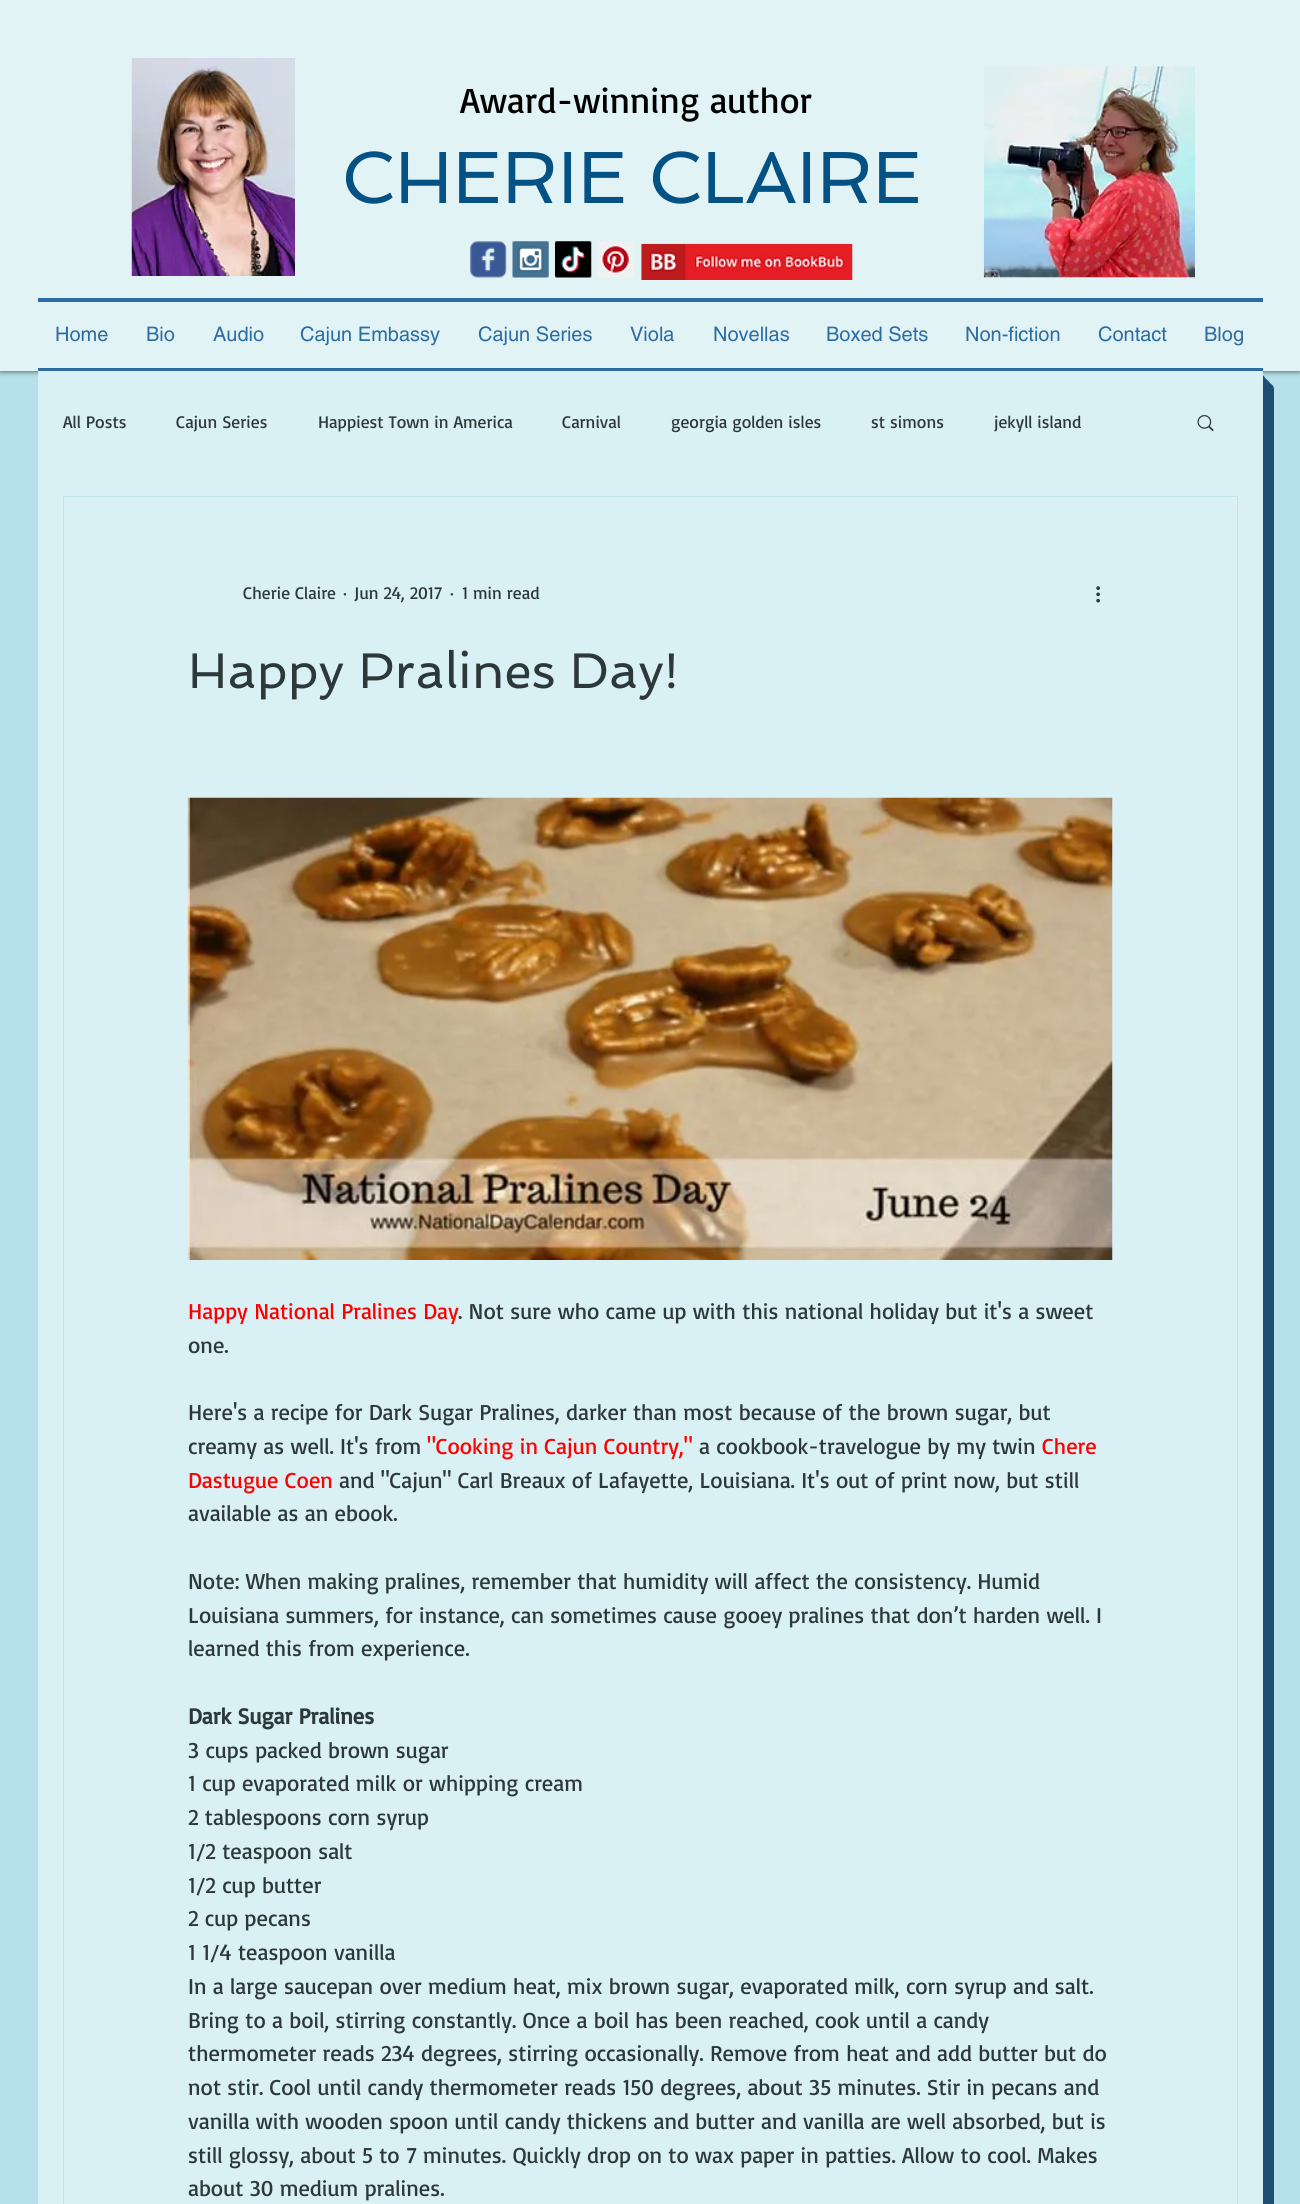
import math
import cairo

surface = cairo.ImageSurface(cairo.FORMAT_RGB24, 1300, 2204)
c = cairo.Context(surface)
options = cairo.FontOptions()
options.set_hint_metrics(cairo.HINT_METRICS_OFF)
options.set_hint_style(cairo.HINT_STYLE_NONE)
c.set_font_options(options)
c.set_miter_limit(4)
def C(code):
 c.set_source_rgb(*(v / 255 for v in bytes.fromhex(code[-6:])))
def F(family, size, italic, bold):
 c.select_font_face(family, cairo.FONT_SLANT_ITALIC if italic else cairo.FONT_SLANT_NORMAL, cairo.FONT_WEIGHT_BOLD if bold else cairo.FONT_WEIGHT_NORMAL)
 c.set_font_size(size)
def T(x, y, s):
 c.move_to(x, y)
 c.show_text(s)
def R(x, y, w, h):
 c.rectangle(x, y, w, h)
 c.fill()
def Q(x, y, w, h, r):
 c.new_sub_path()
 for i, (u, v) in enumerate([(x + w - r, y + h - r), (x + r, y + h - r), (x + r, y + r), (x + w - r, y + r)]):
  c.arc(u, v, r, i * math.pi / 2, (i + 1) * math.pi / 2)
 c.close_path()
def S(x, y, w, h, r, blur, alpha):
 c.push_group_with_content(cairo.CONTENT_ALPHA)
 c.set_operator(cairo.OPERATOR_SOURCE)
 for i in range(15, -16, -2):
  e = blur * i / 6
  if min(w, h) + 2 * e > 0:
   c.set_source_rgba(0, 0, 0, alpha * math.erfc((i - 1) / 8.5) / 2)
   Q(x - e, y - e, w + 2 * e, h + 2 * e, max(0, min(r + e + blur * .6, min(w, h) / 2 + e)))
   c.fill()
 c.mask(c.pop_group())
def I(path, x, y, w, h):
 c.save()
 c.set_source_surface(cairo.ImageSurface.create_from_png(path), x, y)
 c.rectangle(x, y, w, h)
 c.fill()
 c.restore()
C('b6e1ea')
c.paint()
C('000000')
S(0,0,1300,371,0,3,.7)
C('e2f3f6')
R(0,0,1300,371)
I('1.png',131,58,164,218)
F('Basic',36.25,0,0)
C('000000')
T(460,113,'Award-winning author')
I('2.png',983,66,212,212)
F('Spinnaker',73.75,0,0)
C('045184')
T(341,203,'CHERIE CLAIRE')
I('3.png',470,241,37,37)
I('4.png',512,241,37,37)
I('5.png',555,241,37,37)
I('6.png',597,241,37,37)
I('7.png',641,243,212,37)
C('2b6ca3')
R(38,298,1225,4)
R(38,368,1225,3)
F('helvetica',20,0,0)
T(55,341,'Home')
T(146,341,'Bio')
T(213,341,'Audio')
T(300,341,'Cajun Embassy')
T(478,341,'Cajun Series')
T(630,341,'Viola')
T(713,341,'Novellas')
T(826,341,'Boxed Sets')
T(965,341,'Non-fiction')
T(1098,341,'Contact')
T(1204,341,'Blog')
C('1f4e75')
c.new_path()
c.move_to(49,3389)
c.line_to(49,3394)
c.curve_to(49,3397,52,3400,55,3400)
c.line_to(1268,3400)
c.curve_to(1271,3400,1274,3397,1274,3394)
c.line_to(1274,389)
c.curve_to(1274,386,1271,383,1268,383)
c.line_to(1262,383)
c.line_to(1262,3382)
c.curve_to(1262,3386,1260,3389,1256,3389)
c.close_path()
c.fill()
c.new_path()
c.move_to(46,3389)
c.line_to(46,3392)
c.curve_to(46,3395,49,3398,52,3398)
c.line_to(1265,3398)
c.curve_to(1268,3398,1271,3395,1271,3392)
c.line_to(1271,386)
c.curve_to(1271,383,1268,380,1265,380)
c.line_to(1262,380)
c.line_to(1262,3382)
c.curve_to(1262,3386,1260,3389,1256,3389)
c.close_path()
c.fill()
c.new_path()
c.move_to(44,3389)
c.curve_to(44,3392,47,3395,50,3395)
c.line_to(1263,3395)
c.curve_to(1266,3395,1269,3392,1269,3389)
c.line_to(1269,384)
c.curve_to(1269,381,1266,378,1263,378)
c.line_to(1262,378)
c.line_to(1262,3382)
c.curve_to(1262,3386,1260,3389,1256,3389)
c.close_path()
c.fill()
c.new_path()
c.move_to(41,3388)
c.curve_to(42,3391,44,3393,47,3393)
c.line_to(1260,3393)
c.curve_to(1263,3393,1266,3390,1266,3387)
c.line_to(1266,381)
c.curve_to(1266,378,1264,376,1262,375)
c.line_to(1262,378)
c.line_to(1262,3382)
c.curve_to(1262,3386,1260,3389,1256,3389)
c.line_to(44,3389)
c.close_path()
c.fill()
c.new_path()
c.move_to(40,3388)
c.curve_to(41,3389,43,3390,45,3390)
c.line_to(1258,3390)
c.curve_to(1261,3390,1264,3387,1264,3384)
c.line_to(1264,379)
c.curve_to(1264,377,1263,375,1262,374)
c.line_to(1262,378)
c.line_to(1262,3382)
c.curve_to(1262,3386,1260,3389,1256,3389)
c.line_to(44,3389)
c.curve_to(42,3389,41,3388,40,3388)
c.close_path()
c.fill()
C('d9f0f4')
R(38,371,1225,1833)
F('Basic',17.5,0,0)
C('2d383a')
T(63,428,'All Posts')
T(176,428,'Cajun Series')
T(318,428,'Happiest Town in America')
T(562,428,'Carnival')
T(671,428,'georgia golden isles')
T(871,428,'st simons')
T(994,428,'jekyll island')
I('8.png',1197,415,17,17)
c.rectangle(63.5,496.5,1174,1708)
C('bfe5ed')
c.set_line_width(1)
c.stroke()
C('2d383a')
T(243,599,'Cherie Claire')
T(343,599,'·')
T(354,599,'Jun 24, 2017')
T(450,599,'·')
T(462,599,'1 min read')
I('9.png',1096,586,4,17)
F('Spinnaker',50,0,0)
T(188,688,'Happy Pralines Day!')
I('10.png',187,797,926,463)
F('Basic',22.5,0,0)
C('ff0000')
T(188,1319,'Happy National Pralines Day')
C('2d383a')
T(458,1319,'. Not sure who came up with this national holiday but it\'s a sweet')
T(188,1353,'one.')
T(188,1420,'Here\'s a recipe for Dark Sugar Pralines, darker than most because of the brown sugar, but')
T(188,1454,'creamy as well. It\'s from')
C('ff0000')
T(427,1454,'"Cooking in Cajun Country,"')
C('2d383a')
T(699,1454,'a cookbook-travelogue by my twin')
C('ff0000')
T(1042,1454,'Chere')
T(188,1488,'Dastugue Coen')
C('2d383a')
T(339,1488,'and "Cajun" Carl Breaux of Lafayette, Louisiana. It\'s out of print now, but still')
T(188,1521,'available as an ebook.')
T(188,1589,'Note: When making pralines, remember that humidity will affect the consistency. Humid')
T(188,1623,'Louisiana summers, for instance, can sometimes cause gooey pralines that don’t harden well. I')
T(188,1656,'learned this from experience.')
F('Basic',22.5,0,1)
T(188,1724,'Dark Sugar Pralines')
F('Basic',22.5,0,0)
T(188,1758,'3 cups packed brown sugar')
T(188,1791,'1 cup evaporated milk or whipping cream')
T(188,1825,'2 tablespoons corn syrup')
T(188,1859,'1/2 teaspoon salt')
T(188,1893,'1/2 cup butter')
T(188,1926,'2 cup pecans')
T(188,1960,'1 1/4 teaspoon vanilla')
T(188,1994,'In a large saucepan over medium heat, mix brown sugar, evaporated milk, corn syrup and salt.')
T(188,2028,'Bring to a boil, stirring constantly. Once a boil has been reached, cook until a candy')
T(188,2061,'thermometer reads 234 degrees, stirring occasionally. Remove from heat and add butter but do')
T(188,2095,'not stir. Cool until candy thermometer reads 150 degrees, about 35 minutes. Stir in pecans and')
T(188,2129,'vanilla with wooden spoon until candy thickens and butter and vanilla are well absorbed, but is')
T(188,2163,'still glossy, about 5 to 7 minutes. Quickly drop on to wax paper in patties. Allow to cool. Makes')
T(188,2196,'about 30 medium pralines.')
surface.write_to_png('o.png')
